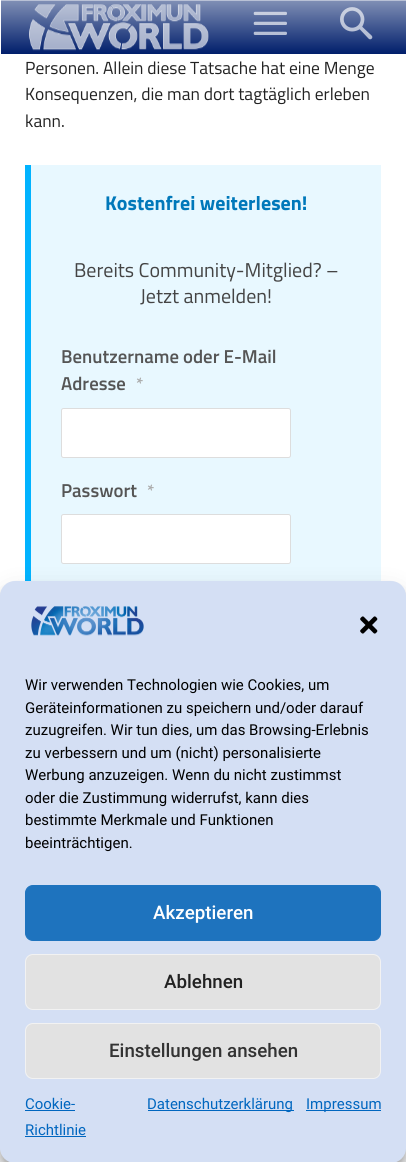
import math
import cairo

surface = cairo.ImageSurface(cairo.FORMAT_RGB24, 406, 1162)
c = cairo.Context(surface)
options = cairo.FontOptions()
options.set_hint_metrics(cairo.HINT_METRICS_OFF)
options.set_hint_style(cairo.HINT_STYLE_NONE)
c.set_font_options(options)
c.set_miter_limit(4)
def C(code):
 c.set_source_rgb(*(v / 255 for v in bytes.fromhex(code[-6:])))
def F(family, size, italic, bold):
 c.select_font_face(family, cairo.FONT_SLANT_ITALIC if italic else cairo.FONT_SLANT_NORMAL, cairo.FONT_WEIGHT_BOLD if bold else cairo.FONT_WEIGHT_NORMAL)
 c.set_font_size(size)
def T(x, y, s):
 c.move_to(x, y)
 c.show_text(s)
def R(x, y, w, h):
 c.rectangle(x, y, w, h)
 c.fill()
def Q(x, y, w, h, r):
 c.new_sub_path()
 for i, (u, v) in enumerate([(x + w - r, y + h - r), (x + r, y + h - r), (x + r, y + r), (x + w - r, y + r)]):
  c.arc(u, v, r, i * math.pi / 2, (i + 1) * math.pi / 2)
 c.close_path()
def S(x, y, w, h, r, blur, alpha):
 c.push_group_with_content(cairo.CONTENT_ALPHA)
 c.set_operator(cairo.OPERATOR_SOURCE)
 for i in range(15, -16, -2):
  e = blur * i / 6
  if min(w, h) + 2 * e > 0:
   c.set_source_rgba(0, 0, 0, alpha * math.erfc((i - 1) / 8.5) / 2)
   Q(x - e, y - e, w + 2 * e, h + 2 * e, max(0, min(r + e + blur * .6, min(w, h) / 2 + e)))
   c.fill()
 c.mask(c.pop_group())
def I(path, x, y, w, h):
 c.save()
 c.set_source_surface(cairo.ImageSurface.create_from_png(path), x, y)
 c.rectangle(x, y, w, h)
 c.fill()
 c.restore()
C('ffffff')
c.paint()
gradient = cairo.LinearGradient(204,54,204,0)
gradient.add_color_stop_rgba(0,0.141,0.243,0.502,1)
gradient.add_color_stop_rgba(0,0,0.118,0.42,1)
gradient.add_color_stop_rgba(.99,0.502,0.561,0.71,1)
gradient.add_color_stop_rgba(.99,0.141,0.243,0.502,1)
gradient.add_color_stop_rgba(.99,0.702,0.737,0.827,1)
gradient.add_color_stop_rgba(1,1,1,1,1)
c.set_source(gradient)
R(1,0,405,54)
I('1.png',29,4,180,47)
I('2.png',253,11,34,24)
I('3.png',340,7,33,33)
F('Titillium Web',17.5,0,0)
C('222222')
T(25,74,'Personen. Allein diese Tatsache hat eine Menge')
T(25,100,'Konsequenzen, die man dort tagtäglich erleben')
T(25,127,'kann.')
C('e8f8ff')
R(31,165,350,416)
C('01b3ff')
R(25,165,6,416)
F('Titillium Web',20,0,1)
C('0078ba')
T(105,210,'Kostenfrei weiterlesen!')
F('Titillium Web',20,0,0)
C('444444')
T(74,277,'Bereits Community-Mitglied? –')
T(140,303,'Jetzt anmelden!')
F('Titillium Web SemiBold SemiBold',18.75,0,0)
C('555555')
T(61,363,'Benutzername oder E-Mail')
T(61,390,'Adresse')
F('Titillium Web SemiBold SemiBold',17.5,0,0)
C('aaaaaa')
T(136,390,'*')
C('ffffff')
Q(61.5,408.5,229,49,2)
c.fill_preserve()
C('dddddd')
c.set_line_width(1)
c.stroke()
F('Titillium Web SemiBold SemiBold',18.75,0,0)
C('555555')
T(61,497,'Passwort')
F('Titillium Web SemiBold SemiBold',17.5,0,0)
C('aaaaaa')
T(147,497,'*')
C('ffffff')
Q(61.5,514.5,229,49,2)
c.fill_preserve()
C('dddddd')
c.stroke()
C('000000')
S(0,589,406,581,15,4,.23)
S(0,594,406,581,15,12.5,.19)
C('d4dff4')
Q(0,581,406,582,15)
c.fill()
I('4.png',31,606,113,30)
I('5.png',360,616,18,18)
F('Roboto',15,0,0)
C('000000')
T(25,690,'Wir verwenden Technologien wie Cookies, um')
T(25,713,'Geräteinformationen zu speichern und/oder darauf')
T(25,735,'zuzugreifen. Wir tun dies, um das Browsing-Erlebnis')
T(25,758,'zu verbessern und um (nicht) personalisierte')
T(25,780,'Werbung anzuzeigen. Wenn du nicht zustimmst')
T(25,803,'oder die Zustimmung widerrufst, kann dies')
T(25,825,'bestimmte Merkmale und Funktionen')
T(25,848,'beeinträchtigen.')
C('1e73be')
Q(25.5,885.5,355,55,7.5)
c.fill_preserve()
c.stroke()
F('Roboto Medium',18.75,0,0)
C('ffffff')
T(153,919,'Akzeptieren')
C('e2e2e2')
Q(25.5,954.5,355,55,7.5)
c.fill_preserve()
C('f2f2f2')
c.stroke()
C('222222')
T(164,988,'Ablehnen')
C('e2e2e2')
Q(25.5,1023.5,355,55,7.5)
c.fill_preserve()
C('f2f2f2')
c.stroke()
C('333333')
T(109,1057,'Einstellungen ansehen')
F('Roboto',15,0,0)
C('0066bf')
T(25,1109,'Cookie-')
R(25,1110,50,1)
T(25,1135,'Richtlinie')
R(25,1136,61,1)
R(148,1110,146,1)
T(147,1109,'Datenschutzerklärung')
R(306,1110,75,1)
T(306,1109,'Impressum')
surface.write_to_png('o.png')
